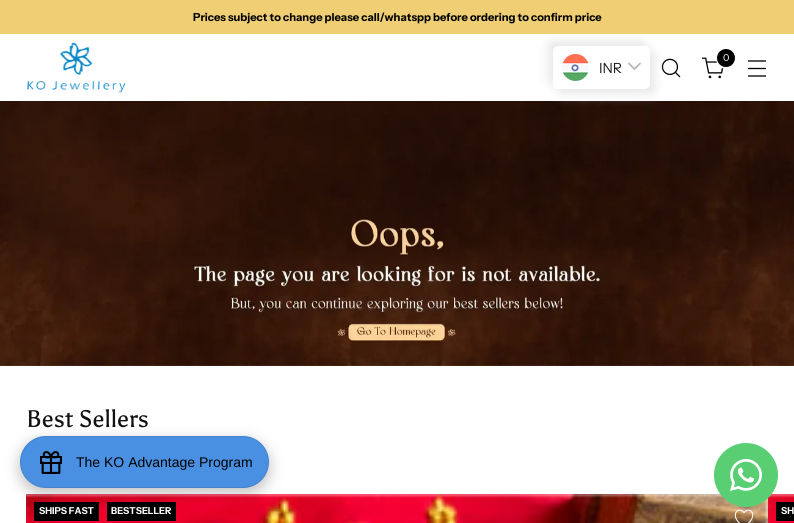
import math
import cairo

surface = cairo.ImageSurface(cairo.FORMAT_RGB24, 794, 523)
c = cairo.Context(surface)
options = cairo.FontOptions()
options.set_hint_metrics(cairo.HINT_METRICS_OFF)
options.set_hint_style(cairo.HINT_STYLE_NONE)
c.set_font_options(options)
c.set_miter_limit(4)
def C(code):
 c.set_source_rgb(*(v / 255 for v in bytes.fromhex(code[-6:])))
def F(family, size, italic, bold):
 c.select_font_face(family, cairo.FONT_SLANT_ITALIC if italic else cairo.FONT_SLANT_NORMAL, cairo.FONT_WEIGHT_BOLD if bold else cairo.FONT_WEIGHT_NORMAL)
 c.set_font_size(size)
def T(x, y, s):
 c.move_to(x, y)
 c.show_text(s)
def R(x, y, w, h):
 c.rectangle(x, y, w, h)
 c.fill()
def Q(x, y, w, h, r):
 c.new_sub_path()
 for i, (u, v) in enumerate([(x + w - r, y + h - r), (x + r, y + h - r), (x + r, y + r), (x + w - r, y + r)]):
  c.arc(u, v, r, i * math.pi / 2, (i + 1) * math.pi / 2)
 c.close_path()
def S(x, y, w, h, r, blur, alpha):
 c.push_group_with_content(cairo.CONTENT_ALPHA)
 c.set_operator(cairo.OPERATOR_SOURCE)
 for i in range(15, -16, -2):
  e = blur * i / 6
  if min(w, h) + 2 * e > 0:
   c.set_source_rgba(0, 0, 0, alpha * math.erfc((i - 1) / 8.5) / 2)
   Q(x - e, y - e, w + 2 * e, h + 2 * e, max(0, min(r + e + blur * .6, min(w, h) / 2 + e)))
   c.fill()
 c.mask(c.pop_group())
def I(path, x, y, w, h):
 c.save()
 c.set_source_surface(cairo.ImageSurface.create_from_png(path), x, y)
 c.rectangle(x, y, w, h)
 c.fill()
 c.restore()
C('ffffff')
c.paint()
C('e8e8e8')
S(548,41,97,43,5,5,1)
C('f0ce73')
R(0,0,794,34)
F('Instrument Sans',11.05,0,1)
C('000000')
T(193,21,'Prices subject to change please call/whatspp before ordering to confirm price')
I('1.png',27,42,99,51)
I('3.png',661,58,20,20)
I('5.png',0,101,794,265)
C('e8e8e8')
S(558,51,97,43,5,5,1)
C('ffffff')
Q(553,46,97,43,5)
c.fill()
I('2.png',562,54,27,27)
F('Instrument Sans',14,0,0)
C('1e1e1e')
T(599,73,'INR')
c.new_path()
c.move_to(629,63.5)
c.line_to(634.5,69)
c.line_to(640,63.5)
C('b7b7b7')
c.set_line_width(1.8)
c.set_line_cap(cairo.LINE_CAP_ROUND)
c.set_line_join(cairo.LINE_JOIN_ROUND)
c.stroke()
I('4.png',702,57,22,22)
c.arc(726.5,58.5,9.5,0,2 * math.pi)
C('ffffff')
c.set_line_width(2)
c.set_line_cap(cairo.LINE_CAP_BUTT)
c.set_line_join(cairo.LINE_JOIN_MITER)
c.stroke()
C('000000')
c.arc(726,58,9,0,2 * math.pi)
c.fill()
F('Instrument Sans',9.5,0,0)
C('ffffff')
T(723,61,'0')
c.new_path()
c.move_to(748,68.5)
c.line_to(766,68.5)
c.move_to(748,61)
c.line_to(766,61)
c.move_to(748,76)
c.line_to(766,76)
C('000000')
c.set_line_width(1.3)
c.stroke()
F('Asul',24,0,0)
C('111111')
T(26,427,'Best Sellers')
I('6.png',26,494,742,29)
C('000000')
R(34,502,65,19)
F('Instrument Sans',9.5,0,1)
C('ffffff')
T(39,514,'SHIPS FAST')
C('000000')
R(107,502,69,19)
C('ffffff')
T(111,514,'BESTSELLER')
c.new_path()
c.move_to(744,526)
c.curve_to(729,518.5,736.5,504.5,744,512.5)
c.curve_to(751.5,504.5,759,518.5,744,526)
c.close_path()
c.set_line_width(1)
c.stroke()
I('7.png',768,494,26,29)
C('000000')
R(776,502,18,19)
C('ffffff')
T(781,514,'SH')
C('000000')
S(20,441,249,52,26,7.5,.25)
C('4a90e2')
Q(20,436,249,52,26)
c.fill()
Q(20.5,436.5,248,51,25.5)
c.set_source_rgba(0,0,0,0.1)
c.stroke()
I('8.png',40,451,22,23)
F('Liberation Sans',14,0,0)
C('000000')
T(76,467,'The KO Advantage Program')
C('59ce72')
c.new_path()
c.arc(746,475,32,0,2 * math.pi)
c.fill()
I('9.png',730,459,32,32)
surface.write_to_png('o.png')
